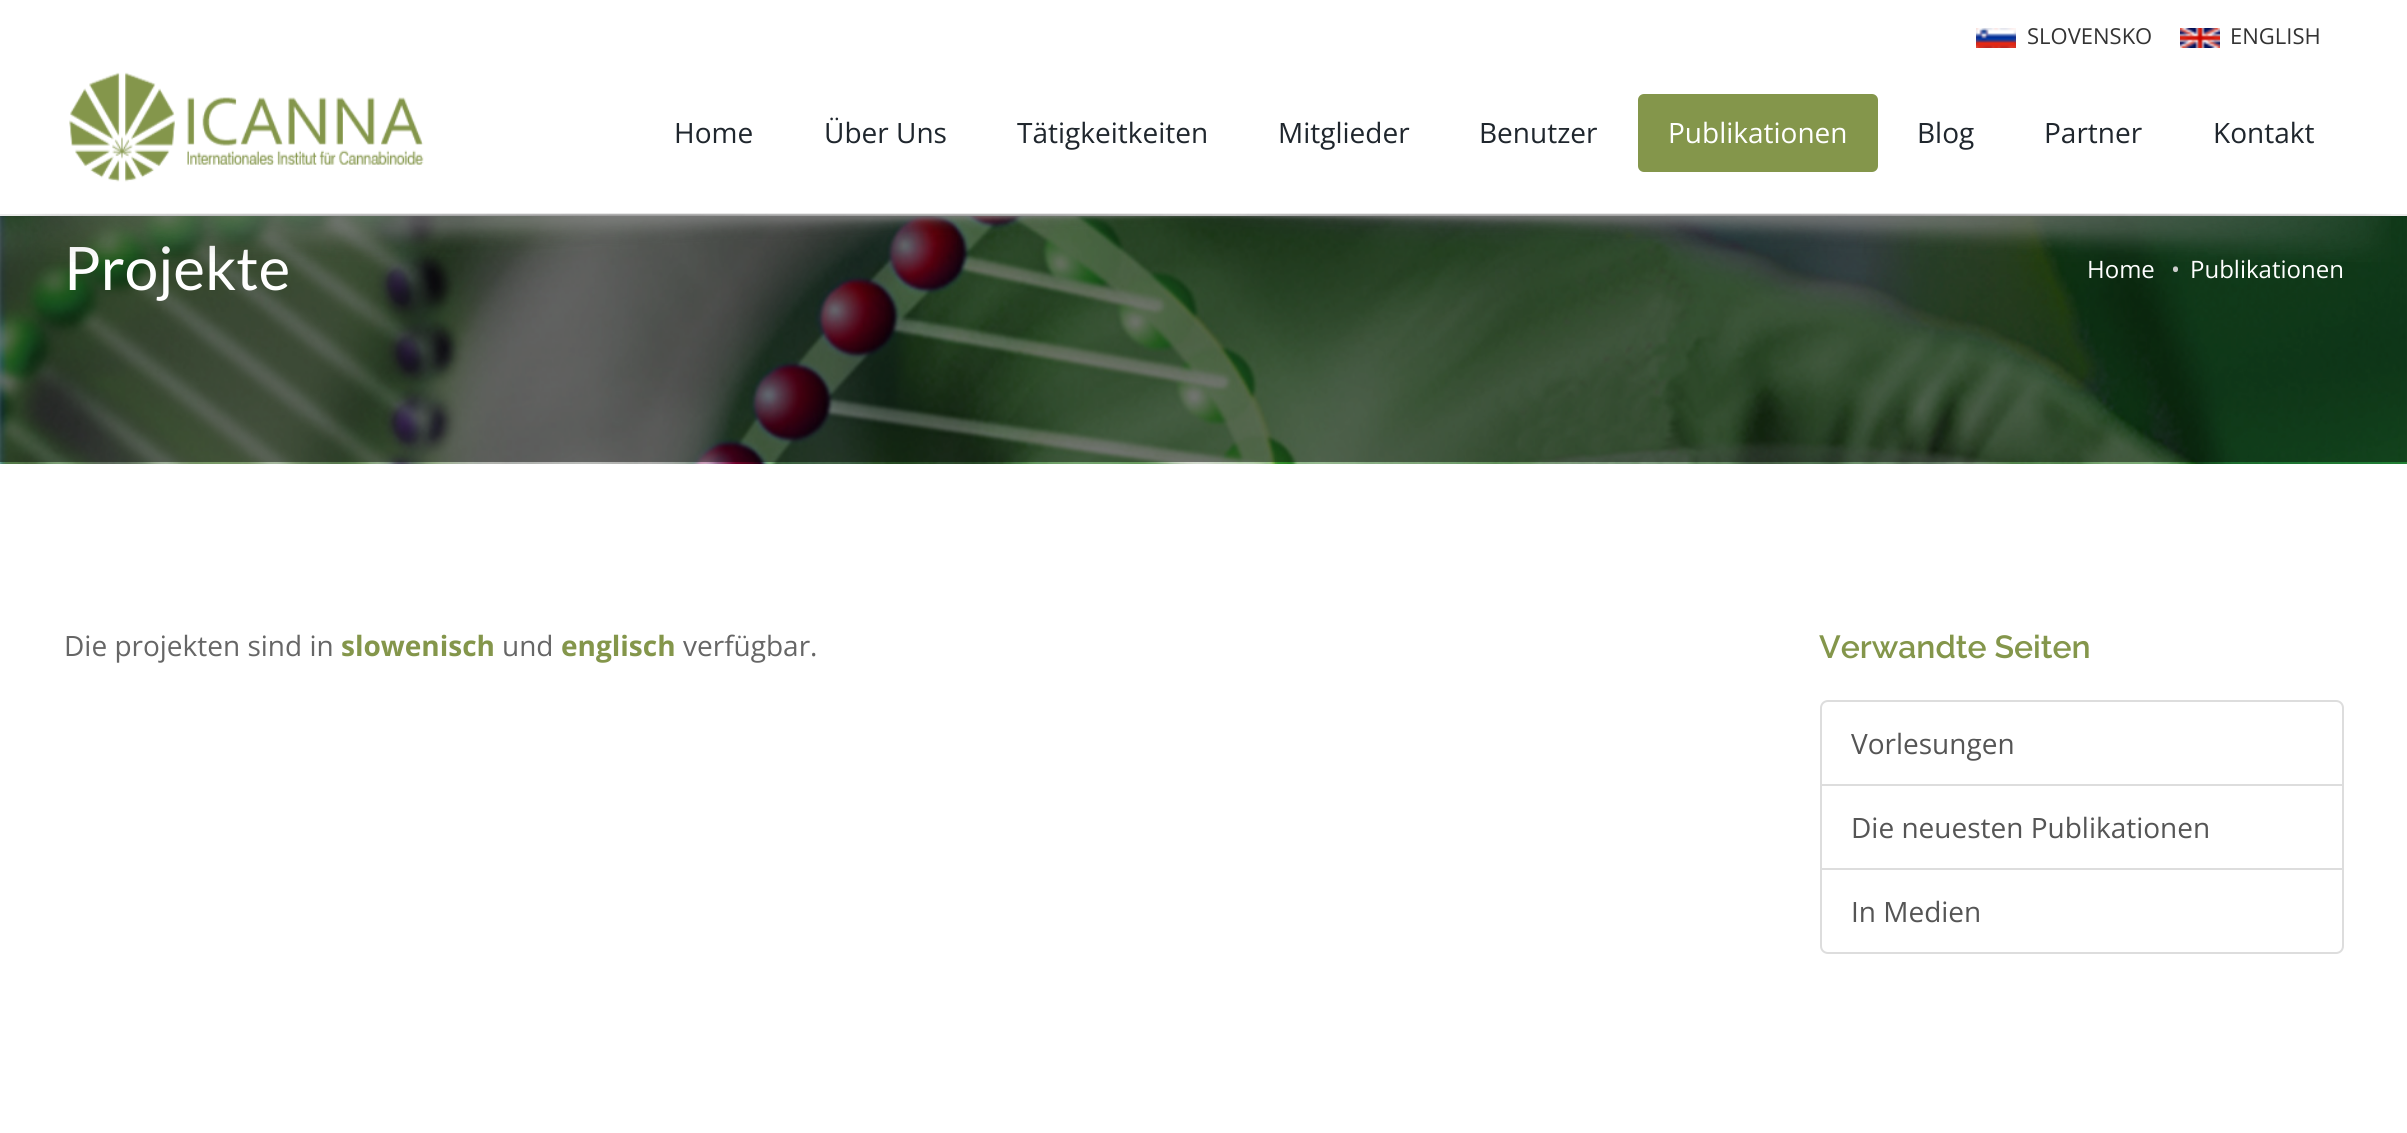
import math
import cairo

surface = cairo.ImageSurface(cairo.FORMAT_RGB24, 2407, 1133)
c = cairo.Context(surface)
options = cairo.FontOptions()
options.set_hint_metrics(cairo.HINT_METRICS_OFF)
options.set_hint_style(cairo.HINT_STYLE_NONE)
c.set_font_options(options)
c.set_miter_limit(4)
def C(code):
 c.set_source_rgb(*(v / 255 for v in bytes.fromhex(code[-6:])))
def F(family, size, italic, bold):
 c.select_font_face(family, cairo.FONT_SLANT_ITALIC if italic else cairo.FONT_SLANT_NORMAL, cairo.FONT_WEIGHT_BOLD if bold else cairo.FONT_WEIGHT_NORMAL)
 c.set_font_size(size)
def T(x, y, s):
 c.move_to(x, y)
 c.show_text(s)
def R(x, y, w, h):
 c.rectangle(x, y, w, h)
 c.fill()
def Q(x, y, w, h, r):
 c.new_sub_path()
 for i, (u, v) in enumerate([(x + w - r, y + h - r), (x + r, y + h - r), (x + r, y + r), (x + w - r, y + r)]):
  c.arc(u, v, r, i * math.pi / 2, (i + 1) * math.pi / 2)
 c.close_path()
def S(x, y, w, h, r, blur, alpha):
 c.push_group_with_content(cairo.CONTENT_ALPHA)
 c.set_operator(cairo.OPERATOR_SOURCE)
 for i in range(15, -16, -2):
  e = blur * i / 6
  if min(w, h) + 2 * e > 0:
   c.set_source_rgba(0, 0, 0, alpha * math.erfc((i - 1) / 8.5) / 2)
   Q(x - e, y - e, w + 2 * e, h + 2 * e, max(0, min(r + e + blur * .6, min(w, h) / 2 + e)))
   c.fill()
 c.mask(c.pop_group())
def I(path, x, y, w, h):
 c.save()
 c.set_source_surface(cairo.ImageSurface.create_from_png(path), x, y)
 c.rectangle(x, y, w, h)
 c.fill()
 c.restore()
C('ffffff')
c.paint()
I('5.png',0,216,2407,248)
C('000000')
S(0,0,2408,216,0,2,.1)
C('ffffff')
R(0,0,2407,214)
C('ebebeb')
R(0,214,2407,2)
I('1.png',1976,28,40,20)
F('Open Sans',22,0,0)
C('333333')
T(2027,44,'SLOVENSKO')
I('2.png',2180,28,40,20)
T(2230,44,'ENGLISH')
I('3.png',69,72,355,110)
F('Open Sans',28,0,0)
C('1f262d')
T(674,143,'Home')
T(824,143,'Über Uns')
T(1017,143,'Tätigkeitkeiten')
T(1278,143,'Mitglieder')
T(1479,143,'Benutzer')
C('84964b')
Q(1638,94,240,78,6)
c.fill()
C('ffffff')
T(1668,143,'Publikationen')
C('1f262d')
T(1917,143,'Blog')
T(2044,143,'Partner')
T(2213,143,'Kontakt')
F('Lato',60,0,0)
C('ffffff')
T(64,290,'Projekte')
F('Open Sans',24,0,0)
T(2087,278,'Home')
T(2190,278,'Publikationen')
I('4.png',20,213,2371,49)
c.set_source_rgba(0,0,0,0.05)
R(0,462,2407,2)
C('cccccc')
T(2171,278,'•')
F('Open Sans',28,0,0)
C('666666')
T(64,656,'Die projekten sind in')
F('Open Sans',28,0,1)
C('84964b')
T(341,656,'slowenisch')
F('Open Sans',28,0,0)
C('666666')
T(502,656,'und')
F('Open Sans',28,0,1)
C('84964b')
T(561,656,'englisch')
F('Open Sans',28,0,0)
C('666666')
T(683,656,'verfügbar.')
F('Raleway SemiBold',32,0,0)
C('84964b')
T(1819,658,'Verwandte Seiten')
c.new_path()
c.move_to(1828,701)
c.line_to(2336,701)
c.curve_to(2340,701,2343,704,2343,708)
c.line_to(2343,785)
c.line_to(1821,785)
c.line_to(1821,708)
c.curve_to(1821,704,1824,701,1828,701)
c.close_path()
C('dddddd')
c.stroke()
F('Open Sans',28,0,0)
C('555555')
T(1851,754,'Vorlesungen')
c.rectangle(1821,785,522,84)
C('dddddd')
c.stroke()
C('555555')
T(1851,838,'Die neuesten Publikationen')
C('ffffff')
c.new_path()
c.move_to(1821,869)
c.line_to(2343,869)
c.line_to(2343,946)
c.curve_to(2343,950,2340,953,2336,953)
c.line_to(1828,953)
c.curve_to(1824,953,1821,950,1821,946)
c.close_path()
c.fill_preserve()
C('dddddd')
c.stroke()
C('555555')
T(1851,922,'In Medien')
surface.write_to_png('o.png')
